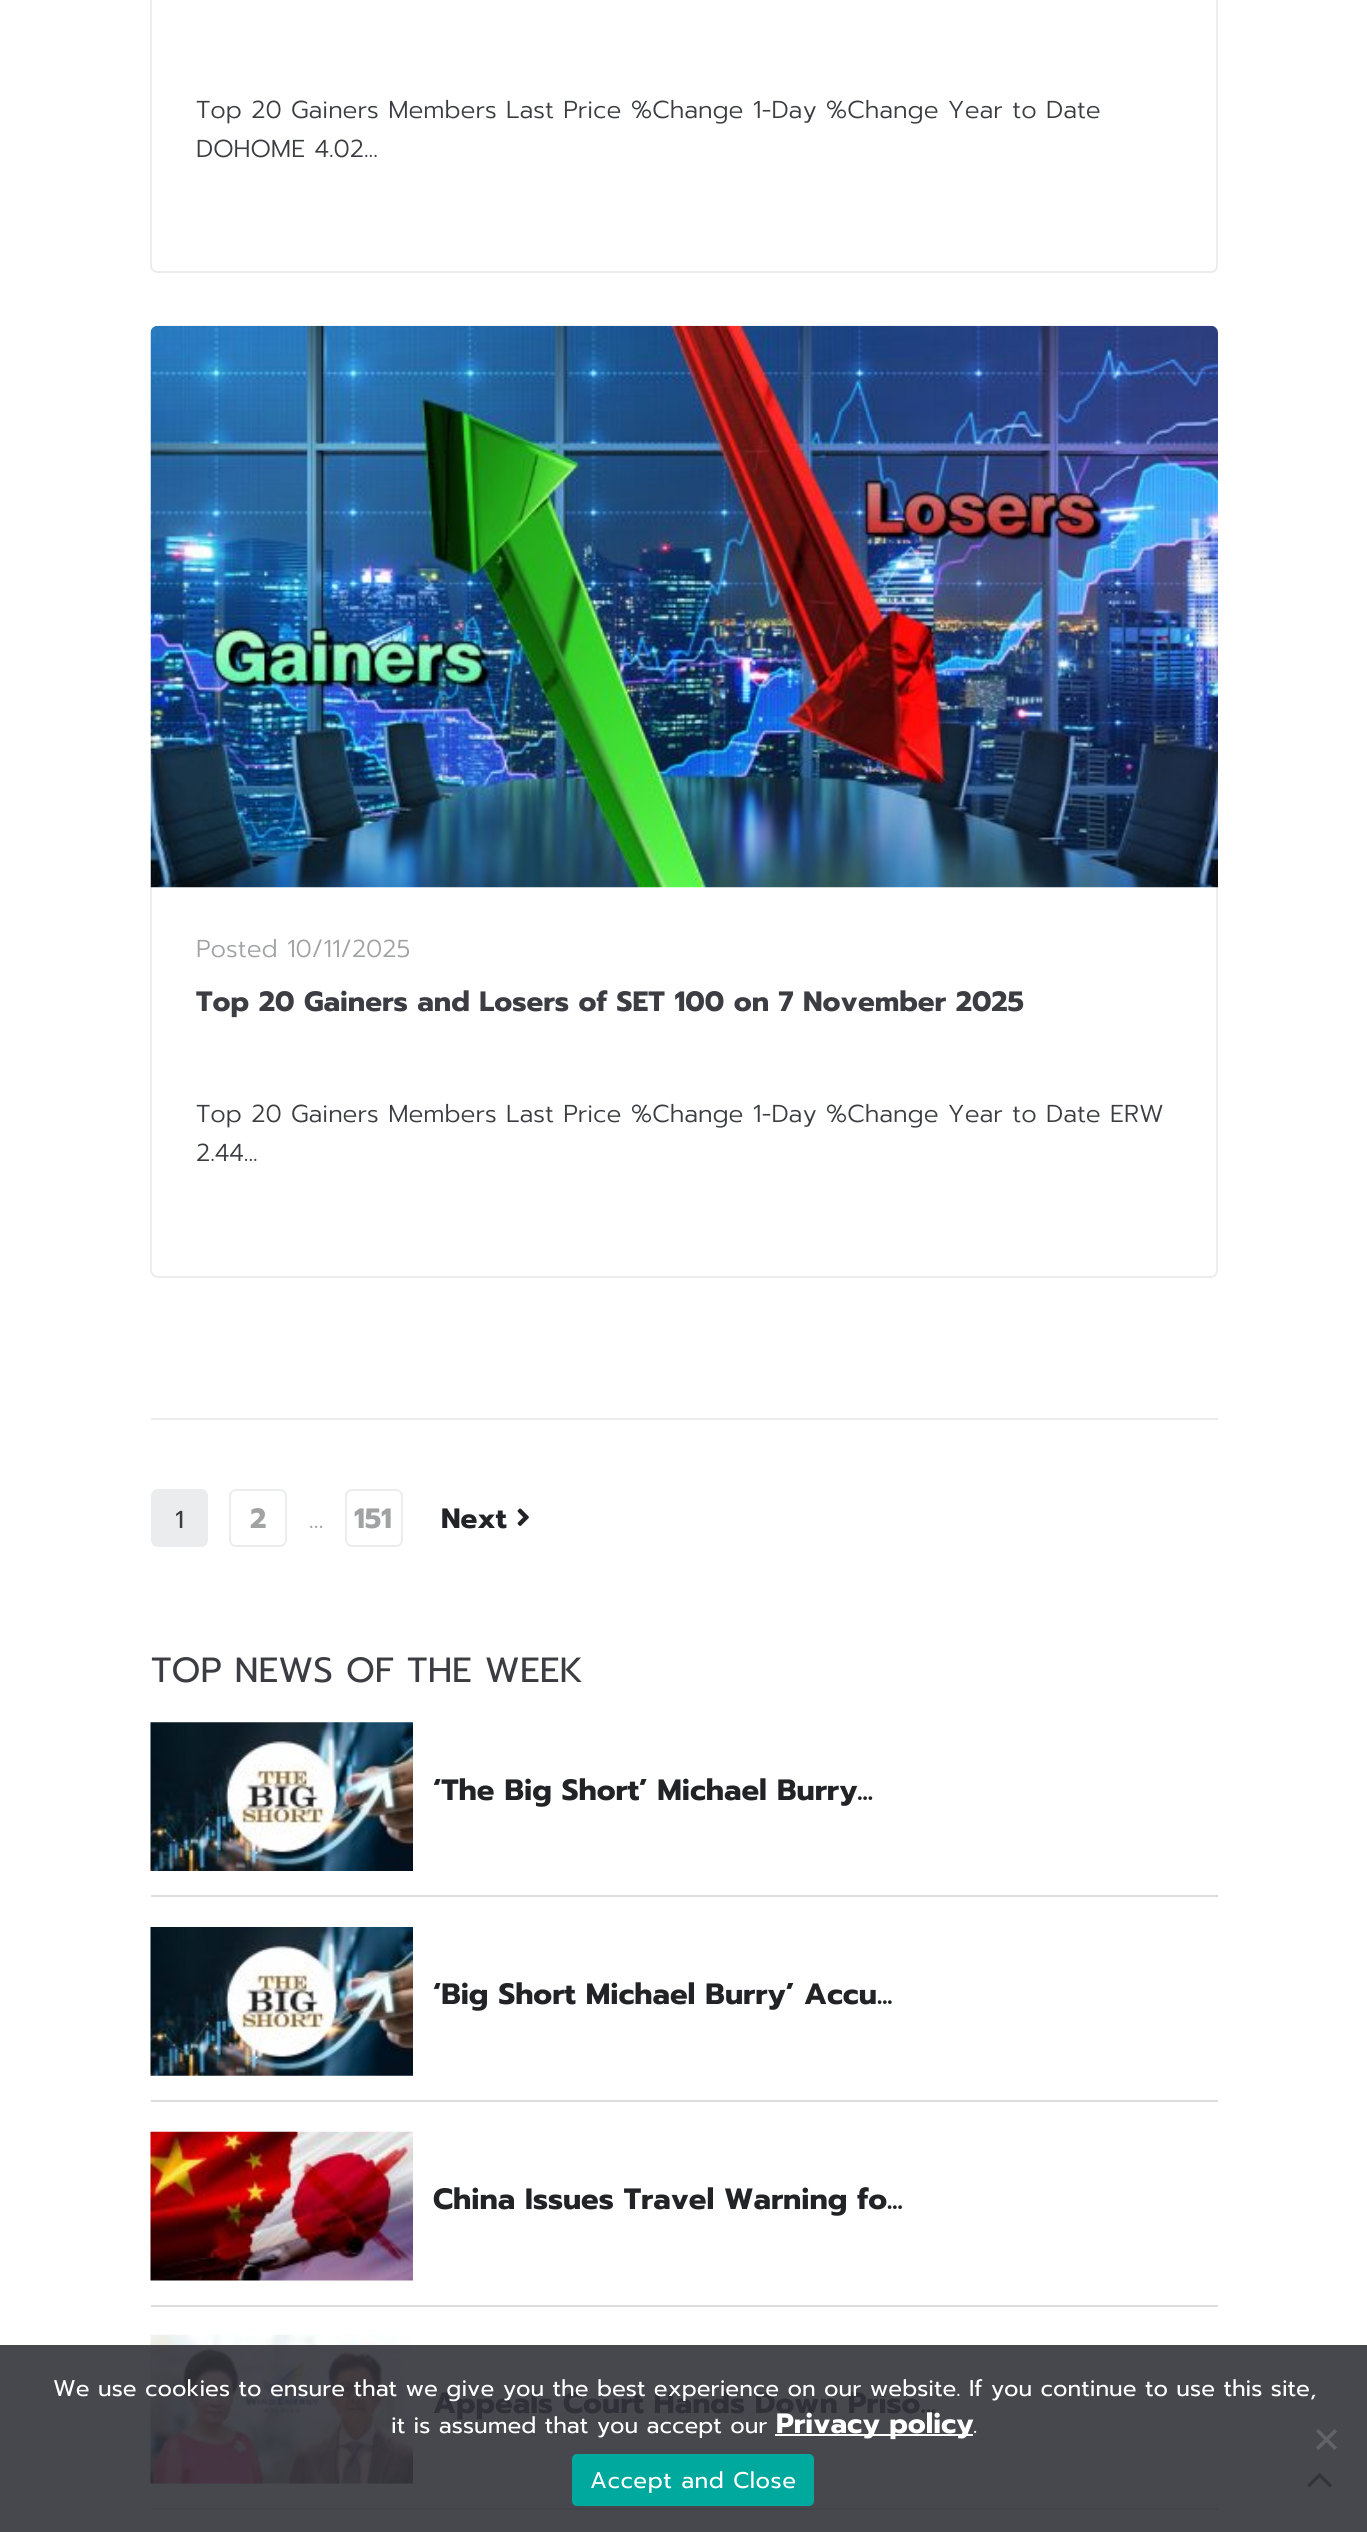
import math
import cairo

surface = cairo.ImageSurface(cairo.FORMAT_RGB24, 1367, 2532)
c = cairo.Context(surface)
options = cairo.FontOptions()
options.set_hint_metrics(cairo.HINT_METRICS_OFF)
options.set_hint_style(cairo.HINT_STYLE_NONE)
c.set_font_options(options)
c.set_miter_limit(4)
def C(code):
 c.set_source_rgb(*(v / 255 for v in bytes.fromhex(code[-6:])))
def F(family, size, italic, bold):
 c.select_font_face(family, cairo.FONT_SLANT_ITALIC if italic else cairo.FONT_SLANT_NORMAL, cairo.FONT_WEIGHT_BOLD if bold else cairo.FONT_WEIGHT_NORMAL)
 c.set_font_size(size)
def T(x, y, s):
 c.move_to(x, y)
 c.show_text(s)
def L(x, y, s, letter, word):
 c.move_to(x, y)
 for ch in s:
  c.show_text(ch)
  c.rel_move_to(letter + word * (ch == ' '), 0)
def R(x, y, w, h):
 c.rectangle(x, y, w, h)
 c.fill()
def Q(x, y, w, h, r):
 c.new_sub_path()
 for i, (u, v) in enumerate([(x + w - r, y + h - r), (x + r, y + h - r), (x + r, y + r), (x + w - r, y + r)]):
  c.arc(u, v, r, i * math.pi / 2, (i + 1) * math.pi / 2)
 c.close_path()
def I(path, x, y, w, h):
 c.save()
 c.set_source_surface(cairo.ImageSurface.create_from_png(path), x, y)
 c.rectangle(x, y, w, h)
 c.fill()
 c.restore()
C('ffffff')
c.paint()
C('47474e')
R(0,2345,1367,187)
C('ebeced')
c.set_fill_rule(cairo.FILL_RULE_EVEN_ODD)
c.new_path()
c.move_to(150,-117)
c.line_to(1218,-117)
c.line_to(1218,266)
c.curve_to(1218,270,1215,273,1211,273)
c.line_to(158,273)
c.curve_to(154,273,150,270,150,266)
c.close_path()
c.move_to(152,-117)
c.line_to(1216,-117)
c.line_to(1216,266)
c.curve_to(1216,269,1214,271,1211,271)
c.line_to(158,271)
c.curve_to(155,271,152,269,152,266)
c.close_path()
c.fill()
F('Prompt Light',24.5,0,0)
C('3b3d42')
T(196,118,'Top 20 Gainers Members Last Price %Change 1-Day %Change Year to Date')
T(196,157,'DOHOME 4.02...')
C('ebeced')
c.new_path()
c.move_to(150,887)
c.line_to(1218,887)
c.line_to(1218,1270)
c.curve_to(1218,1274,1215,1278,1211,1278)
c.line_to(158,1278)
c.curve_to(154,1278,150,1274,150,1270)
c.close_path()
c.move_to(152,887)
c.line_to(1216,887)
c.line_to(1216,1270)
c.curve_to(1216,1273,1214,1276,1211,1276)
c.line_to(158,1276)
c.curve_to(155,1276,152,1273,152,1270)
c.close_path()
c.fill()
I('1.png',150,325,1068,563)
C('a1a2a4')
T(196,957,'Posted 10/11/2025')
F('Prompt',28,0,1)
C('3b3d42')
T(196,1011,'Top 20 Gainers and Losers of SET 100 on 7 November 2025')
F('Prompt Light',24.5,0,0)
T(196,1122,'Top 20 Gainers Members Last Price %Change 1-Day %Change Year to Date ERW')
T(196,1161,'2.44...')
C('ebeced')
R(151,1418,1067,2)
Q(152,1490,55,56,6)
c.fill_preserve()
c.stroke()
F('Prompt',24.5,0,0)
C('3b3d42')
T(175,1528,'1')
Q(230,1490,56,56,6)
C('ebeced')
c.stroke()
F('Prompt',28,0,1)
C('a1a2a4')
T(250,1528,'2')
F('Prompt',24.5,0,0)
T(309,1528,'…')
Q(346,1490,56,56,6)
C('ebeced')
c.stroke()
F('Prompt',28,0,1)
C('a1a2a4')
T(354,1528,'151')
C('212326')
T(441,1528,'Next')
I('2.png',517,1508,12,18)
F('Prompt',35,0,0)
C('3b3d42')
T(151,1682,'TOP NEWS OF THE WEEK')
C('dddddd')
R(151,1895,1067,2)
I('3.png',150,1722,263,149)
F('Prompt',29.4,0,1)
C('212326')
T(433,1800,'‘The Big Short’ Michael Burry...')
C('dddddd')
R(151,2100,1067,2)
I('4.png',150,1927,263,149)
C('212326')
T(433,2004,'‘Big Short Michael Burry’ Accu...')
C('dddddd')
R(151,2305,1067,2)
I('5.png',150,2131,263,150)
C('212326')
T(433,2209,'China Issues Travel Warning fo...')
C('43434a')
R(151,2508,1067,2)
I('6.png',150,2334,263,150)
C('303138')
T(433,2413,'Appeals Court Hands Down Priso...')
F('Prompt',22.75,0,0)
C('ffffff')
T(53,2396,'We use cookies to ensure that we give you the best experience on our website. If you continue to use this site,')
T(391,2433,'it is assumed that you accept our')
R(775,2434,198,2)
F('Prompt',28,0,1)
T(776,2433,'Privacy policy')
F('Prompt',22.75,0,0)
T(973,2433,'.')
C('636367')
c.set_fill_rule(cairo.FILL_RULE_WINDING)
c.new_path()
c.move_to(1334.5,2429)
c.line_to(1337,2431.5)
c.line_to(1318.5,2450)
c.line_to(1316,2447.5)
c.close_path()
c.fill()
c.new_path()
c.move_to(1316,2431.5)
c.line_to(1318.5,2429)
c.line_to(1337,2447.5)
c.line_to(1334.5,2450)
c.close_path()
c.fill()
C('00a99d')
Q(572,2454,242,52,5)
c.fill()
C('ffffff')
L(590,2488,'Accept and Close',.5,0)
I('7.png',1307,2473,25,15)
surface.write_to_png('o.png')
